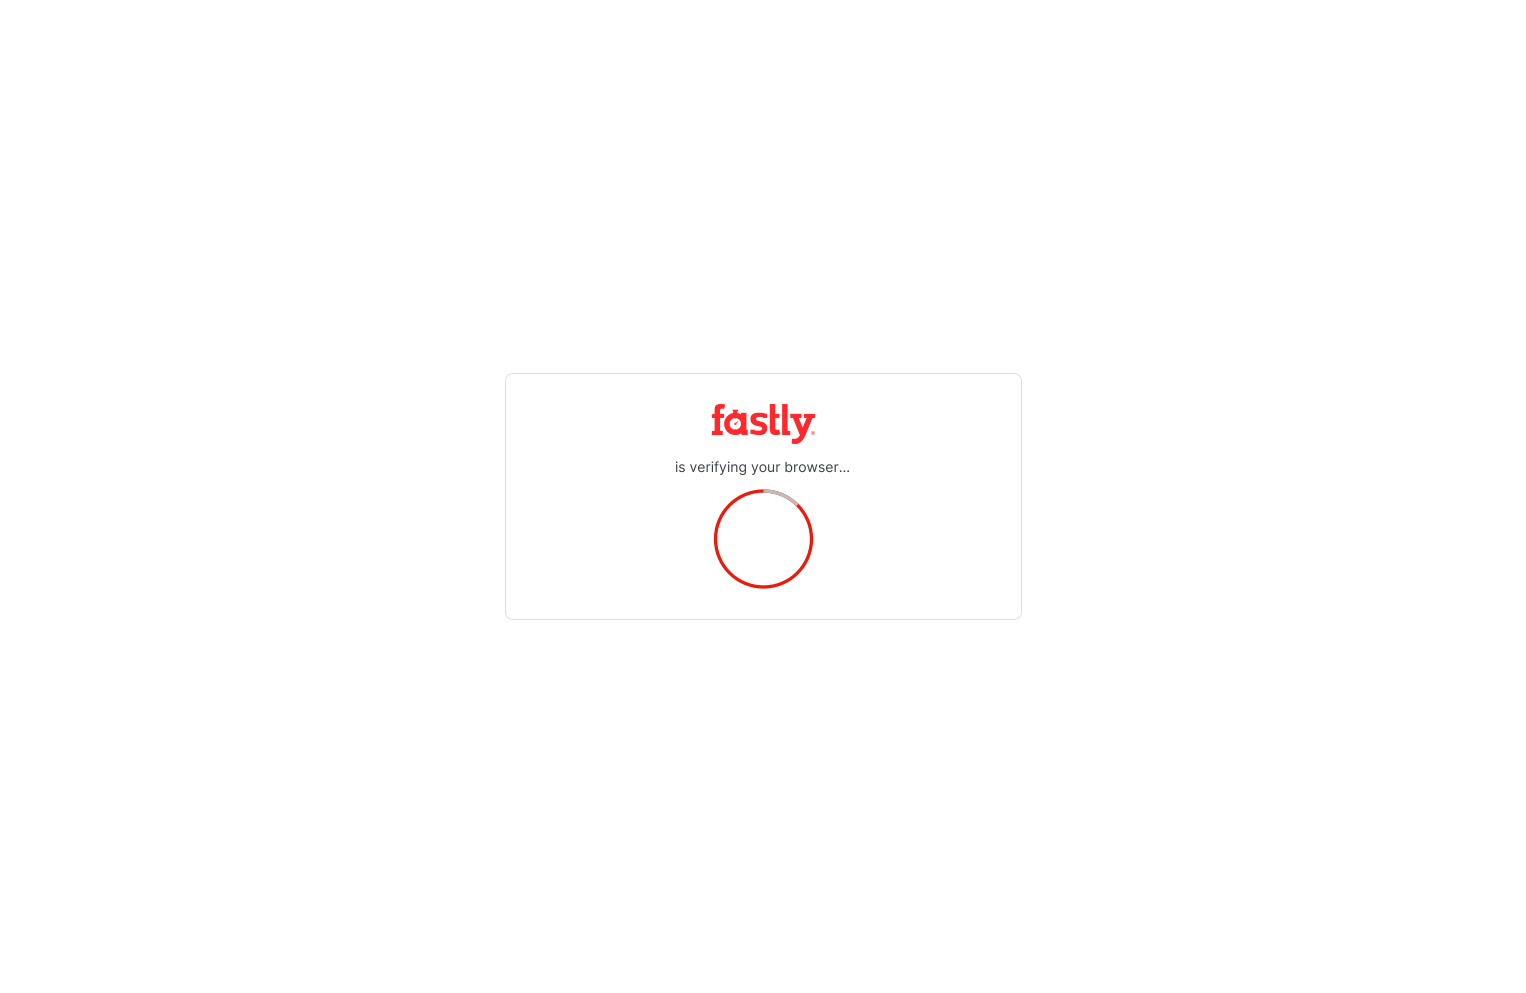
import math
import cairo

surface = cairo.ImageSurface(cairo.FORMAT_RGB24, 1526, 993)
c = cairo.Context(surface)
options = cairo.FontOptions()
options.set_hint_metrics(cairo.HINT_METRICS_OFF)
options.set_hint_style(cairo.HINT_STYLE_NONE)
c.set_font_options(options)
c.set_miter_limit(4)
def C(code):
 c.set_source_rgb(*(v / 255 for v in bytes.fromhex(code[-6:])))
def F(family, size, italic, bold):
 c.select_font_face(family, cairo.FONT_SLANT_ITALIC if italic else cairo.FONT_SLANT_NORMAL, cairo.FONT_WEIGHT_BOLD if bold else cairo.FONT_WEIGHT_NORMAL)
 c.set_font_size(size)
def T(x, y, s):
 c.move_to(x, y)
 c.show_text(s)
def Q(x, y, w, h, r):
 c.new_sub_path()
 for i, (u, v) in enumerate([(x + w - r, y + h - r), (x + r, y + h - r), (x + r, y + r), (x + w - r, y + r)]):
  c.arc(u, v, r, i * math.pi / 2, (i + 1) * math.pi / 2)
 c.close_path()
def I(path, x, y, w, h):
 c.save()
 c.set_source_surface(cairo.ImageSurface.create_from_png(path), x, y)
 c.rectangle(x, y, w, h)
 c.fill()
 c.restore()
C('ffffff')
c.paint()
Q(505.5,373.5,516,246,7.5)
C('dce0e4')
c.set_line_width(1)
c.stroke()
I('1.png',711,404,105,40)
F('Inter',14,0,0)
C('3a424a')
T(675,472,'is verifying your browser...')
c.new_path()
c.move_to(715.5,539)
c.curve_to(715.5,512.5,737,491,763.5,491)
c.curve_to(790,491,811.5,512.5,811.5,539)
c.curve_to(811.5,565.5,790,587,763.5,587)
c.curve_to(737,587,715.5,565.5,715.5,539)
c.close_path()
C('eb1a0c')
c.set_line_width(3.3)
c.stroke()
c.new_path()
c.move_to(797.5,505)
c.curve_to(788.5,496,776,491,763.5,491)
C('c2bab5')
c.stroke()
surface.write_to_png('o.png')
